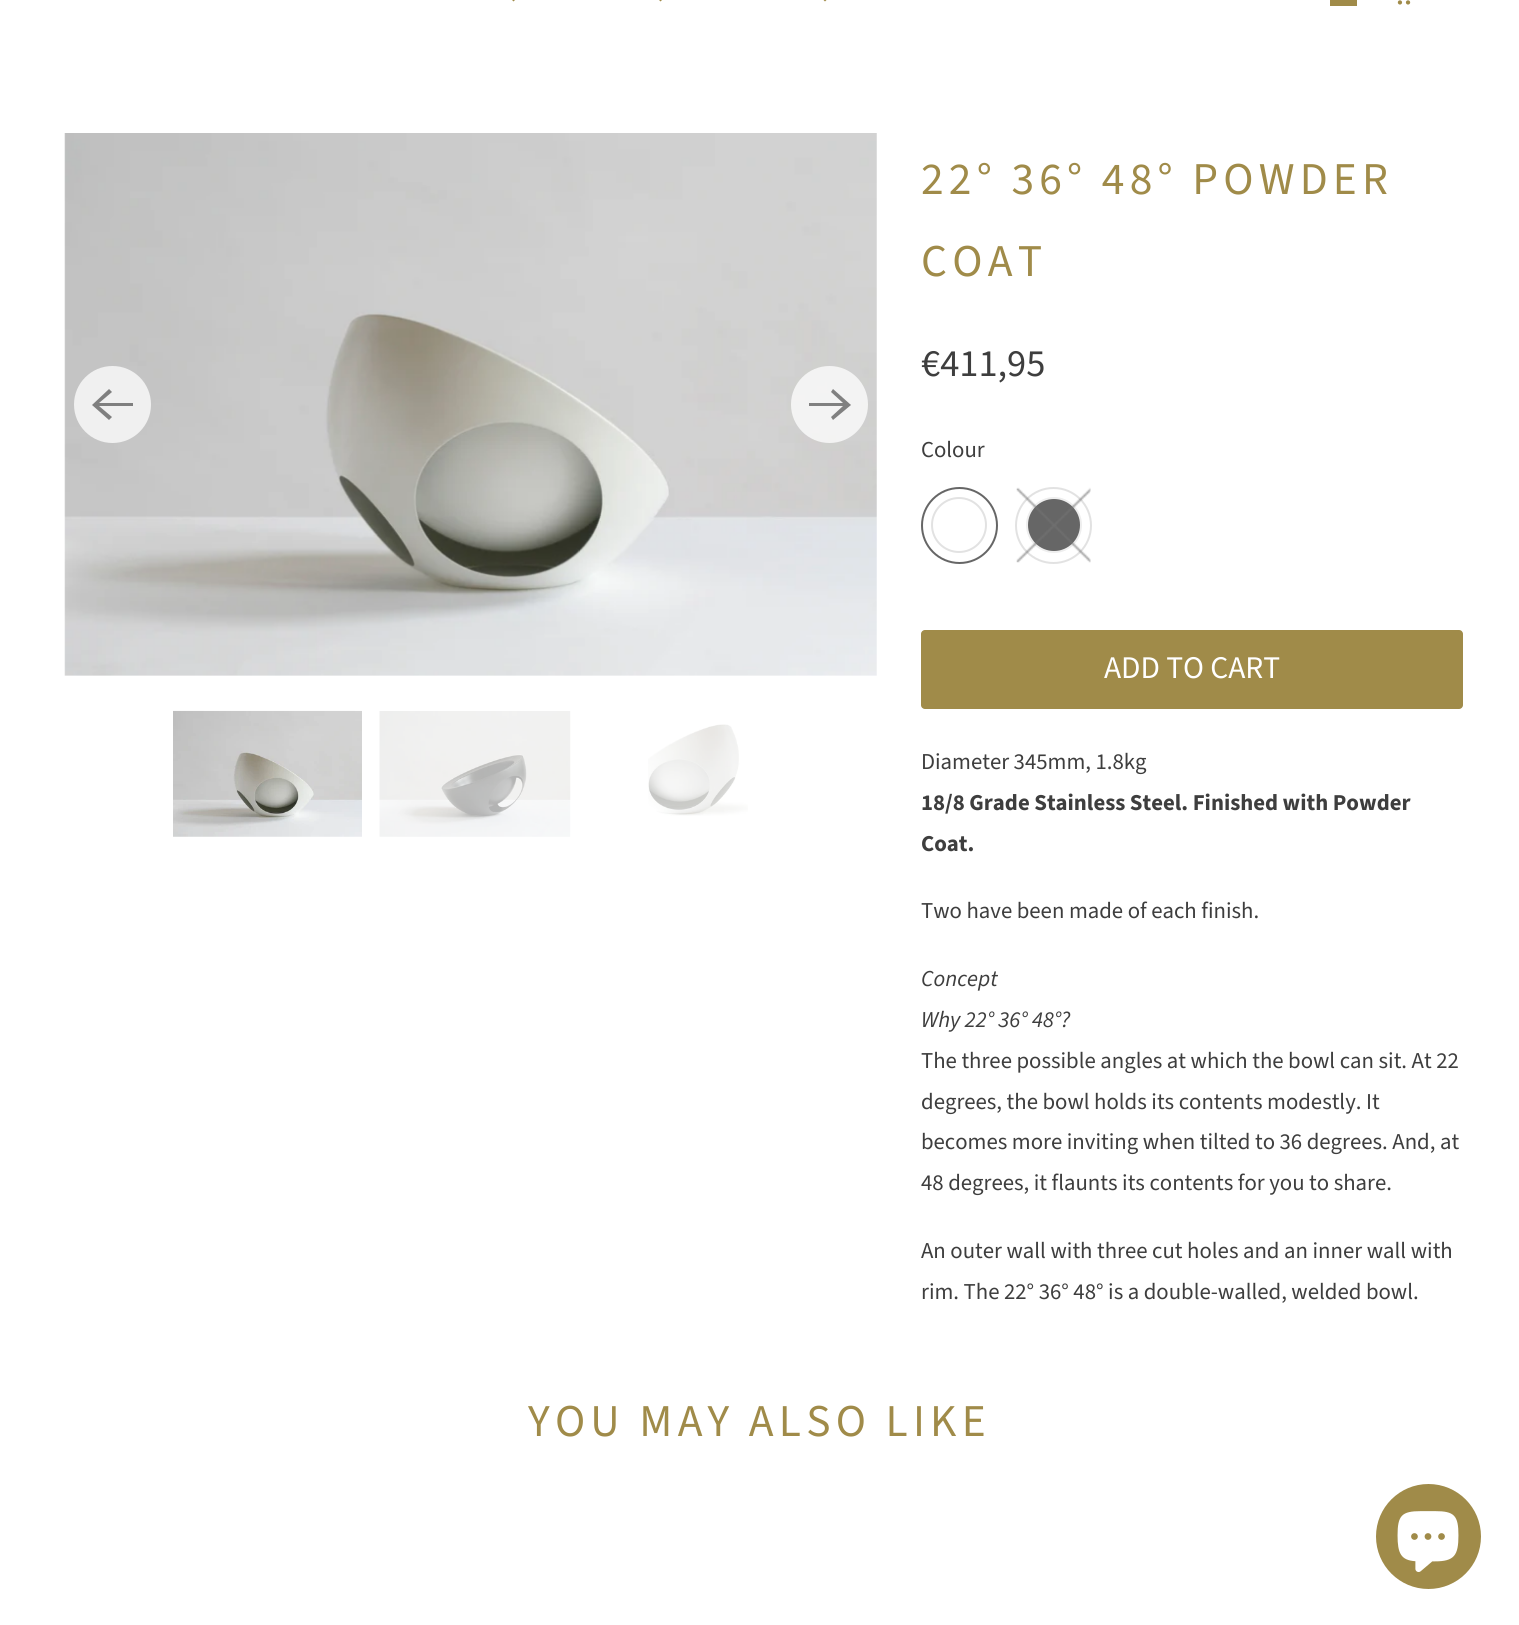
import math
import cairo

surface = cairo.ImageSurface(cairo.FORMAT_RGB24, 1519, 1625)
c = cairo.Context(surface)
options = cairo.FontOptions()
options.set_hint_metrics(cairo.HINT_METRICS_OFF)
options.set_hint_style(cairo.HINT_STYLE_NONE)
c.set_font_options(options)
c.set_miter_limit(4)
def C(code):
 c.set_source_rgb(*(v / 255 for v in bytes.fromhex(code[-6:])))
def F(family, size, italic, bold):
 c.select_font_face(family, cairo.FONT_SLANT_ITALIC if italic else cairo.FONT_SLANT_NORMAL, cairo.FONT_WEIGHT_BOLD if bold else cairo.FONT_WEIGHT_NORMAL)
 c.set_font_size(size)
def T(x, y, s):
 c.move_to(x, y)
 c.show_text(s)
def L(x, y, s, letter, word):
 c.move_to(x, y)
 for ch in s:
  c.show_text(ch)
  c.rel_move_to(letter + word * (ch == ' '), 0)
def R(x, y, w, h):
 c.rectangle(x, y, w, h)
 c.fill()
def Q(x, y, w, h, r):
 c.new_sub_path()
 for i, (u, v) in enumerate([(x + w - r, y + h - r), (x + r, y + h - r), (x + r, y + r), (x + w - r, y + r)]):
  c.arc(u, v, r, i * math.pi / 2, (i + 1) * math.pi / 2)
 c.close_path()
def I(path, x, y, w, h):
 c.save()
 c.set_source_surface(cairo.ImageSurface.create_from_png(path), x, y)
 c.rectangle(x, y, w, h)
 c.fill()
 c.restore()
C('ffffff')
c.paint()
C('a08b49')
c.new_path()
c.move_to(507,-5)
c.line_to(500.5,-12)
c.line_to(502.5,-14)
c.line_to(513.5,-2.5)
c.line_to(525,-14)
c.line_to(527,-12)
c.line_to(513.5,1.5)
c.close_path()
c.fill()
c.new_path()
c.move_to(654,-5)
c.line_to(647.5,-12)
c.line_to(649.5,-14)
c.line_to(660.5,-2.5)
c.line_to(672,-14)
c.line_to(674,-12)
c.line_to(660.5,1.5)
c.close_path()
c.fill()
c.new_path()
c.move_to(818.5,-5)
c.line_to(812,-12)
c.line_to(814,-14)
c.line_to(825,-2.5)
c.line_to(836.5,-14)
c.line_to(838.5,-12)
c.line_to(825,1.5)
c.close_path()
c.fill()
R(1330,0,27,6)
I('1.png',1397,0,14,5)
I('2.png',64,133,813,543)
C('f0f0f0')
c.arc(112.5,404.5,38.5,0,2 * math.pi)
c.fill()
C('7f7f7f')
c.new_path()
c.move_to(133,403)
c.line_to(99,403)
c.line_to(112,392)
c.line_to(109,389)
c.line_to(92,405)
c.line_to(109,420)
c.line_to(112,417)
c.line_to(99,406)
c.line_to(133,406)
c.close_path()
c.fill()
c.set_source_rgba(1,1,1,0.75)
c.arc(829.5,404.5,38.5,0,2 * math.pi)
c.fill()
C('808080')
c.new_path()
c.move_to(809,406)
c.line_to(843,406)
c.line_to(831,417)
c.line_to(833,420)
c.line_to(851,405)
c.line_to(833,389)
c.line_to(831,392)
c.line_to(843,403)
c.line_to(809,403)
c.close_path()
c.fill()
I('3.png',173,710,189,127)
I('4.png',379,711,192,126)
I('5.png',648,724,100,92)
F('Source Sans Pro',45.5,0,0)
C('a08b49')
L(921,194,'22° 36° 48° POWDER',5.25,0)
L(921,276,'COAT',5.25,0)
F('Source Sans Pro',38.5,0,0)
C('3e3e3e')
T(921,376,'€411,95')
F('Source Sans Pro',22.75,0,0)
T(921,457,'Colour')
c.new_path()
c.arc(959.5,525.5,37.5,0,2 * math.pi)
C('666666')
c.stroke()
c.arc(959,525,27,0,2 * math.pi)
C('e2e2e2')
c.stroke()
c.arc(1053.5,525.5,37.5,0,2 * math.pi)
c.stroke()
C('666666')
c.arc(1054,525,27,0,2 * math.pi)
c.fill_preserve()
C('eeeeee')
c.stroke()
I('6.png',1016,487,75,76)
C('a08b49')
Q(921,630,542,79,4)
c.fill()
F('Source Sans Pro',31.5,0,0)
C('ffffff')
T(1104,678,'ADD TO CART')
F('Source Sans Pro',22.75,0,0)
C('3e3e3e')
T(921,769,'Diameter 345mm, 1.8kg')
F('Source Sans Pro',22.75,0,1)
T(921,810,'18/8 Grade Stainless Steel. Finished with Powder')
T(921,851,'Coat.')
F('Source Sans Pro',22.75,0,0)
T(921,918,'Two have been made of each finish.')
F('Source Sans Pro',22.75,1,0)
T(921,986,'Concept')
T(921,1027,'Why 22° 36° 48°?')
F('Source Sans Pro',22.75,0,0)
T(921,1068,'The three possible angles at which the bowl can sit. At 22')
T(921,1109,'degrees, the bowl holds its contents modestly. It')
T(921,1149,'becomes more inviting when tilted to 36 degrees. And, at')
T(921,1190,'48 degrees, it flaunts its contents for you to share.')
T(921,1258,'An outer wall with three cut holes and an inner wall with')
T(921,1299,'rim. The 22° 36° 48° is a double-walled, welded bowl.')
F('Source Sans Pro',45.5,0,0)
C('a08b49')
L(528,1436,'YOU MAY ALSO LIKE',5.25,0)
c.new_path()
c.arc(1428.5,1536.5,52.5,0,2 * math.pi)
c.fill()
I('7.png',1397,1511,62,61)
surface.write_to_png('o.png')
